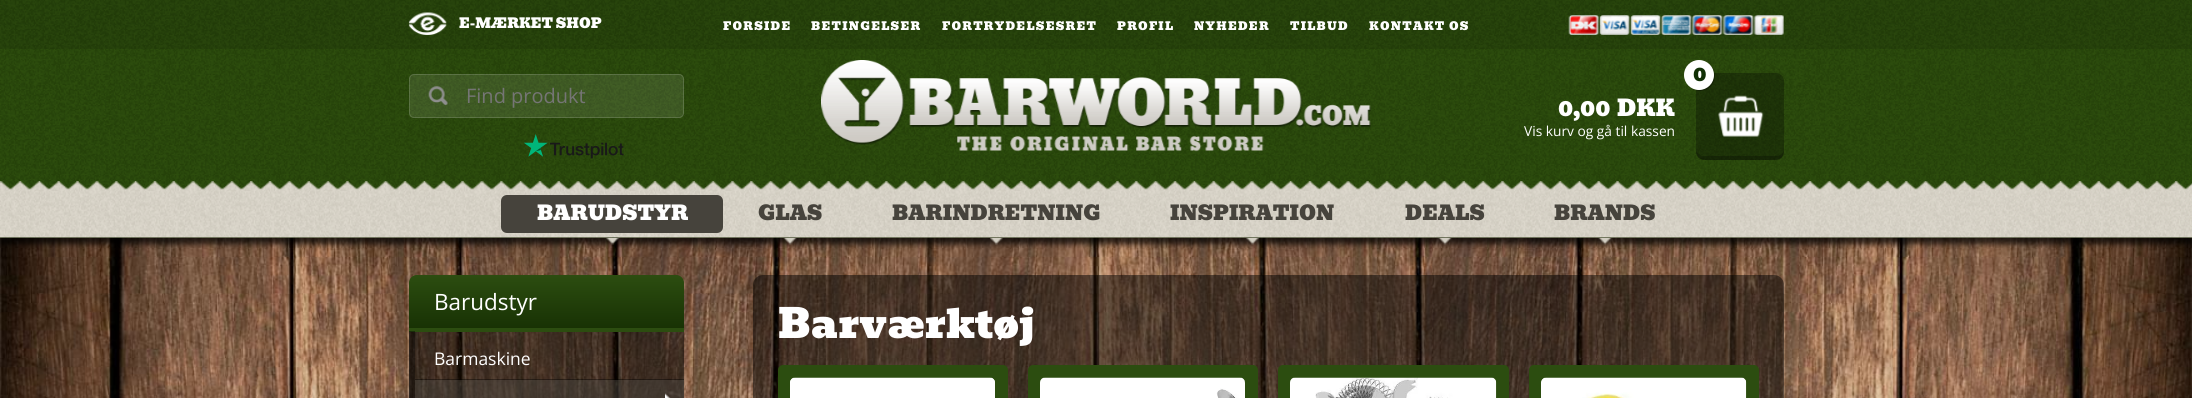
import math
import cairo

surface = cairo.ImageSurface(cairo.FORMAT_RGB24, 2192, 398)
c = cairo.Context(surface)
options = cairo.FontOptions()
options.set_hint_metrics(cairo.HINT_METRICS_OFF)
options.set_hint_style(cairo.HINT_STYLE_NONE)
c.set_font_options(options)
c.set_miter_limit(4)
def C(code):
 c.set_source_rgb(*(v / 255 for v in bytes.fromhex(code[-6:])))
def F(family, size, italic, bold):
 c.select_font_face(family, cairo.FONT_SLANT_ITALIC if italic else cairo.FONT_SLANT_NORMAL, cairo.FONT_WEIGHT_BOLD if bold else cairo.FONT_WEIGHT_NORMAL)
 c.set_font_size(size)
def T(x, y, s):
 c.move_to(x, y)
 c.show_text(s)
def L(x, y, s, letter, word):
 c.move_to(x, y)
 for ch in s:
  c.show_text(ch)
  c.rel_move_to(letter + word * (ch == ' '), 0)
def R(x, y, w, h):
 c.rectangle(x, y, w, h)
 c.fill()
def Q(x, y, w, h, r):
 c.new_sub_path()
 for i, (u, v) in enumerate([(x + w - r, y + h - r), (x + r, y + h - r), (x + r, y + r), (x + w - r, y + r)]):
  c.arc(u, v, r, i * math.pi / 2, (i + 1) * math.pi / 2)
 c.close_path()
def S(x, y, w, h, r, blur, alpha):
 c.push_group_with_content(cairo.CONTENT_ALPHA)
 c.set_operator(cairo.OPERATOR_SOURCE)
 for i in range(15, -16, -2):
  e = blur * i / 6
  if min(w, h) + 2 * e > 0:
   c.set_source_rgba(0, 0, 0, alpha * math.erfc((i - 1) / 8.5) / 2)
   Q(x - e, y - e, w + 2 * e, h + 2 * e, max(0, min(r + e + blur * .6, min(w, h) / 2 + e)))
   c.fill()
 c.mask(c.pop_group())
def I(path, x, y, w, h):
 c.save()
 c.set_source_surface(cairo.ImageSurface.create_from_png(path), x, y)
 c.rectangle(x, y, w, h)
 c.fill()
 c.restore()
C('ffffff')
c.paint()
I('1.png',0,237,2192,161)
C('000000')
S(0,6,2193,238,0,3,.75)
I('2.png',0,0,2192,238)
c.set_source_rgba(0,0,0,0.1)
R(0,0,2192,49)
I('3.png',408,12,39,23)
F('Bevan',13.75,0,0)
C('ffffff')
T(459,28,'E-MÆRKET SHOP')
F('Bevan',11.25,0,0)
L(723,30,'FORSIDE',1.25,0)
L(811,30,'BETINGELSER',1.25,0)
L(942,30,'FORTRYDELSESRET',1.25,0)
L(1117,30,'PROFIL',1.25,0)
L(1194,30,'NYHEDER',1.25,0)
L(1290,30,'TILBUD',1.25,0)
L(1369,30,'KONTAKT OS',1.25,0)
I('4.png',1568,15,216,20)
c.set_source_rgba(1,1,1,0.1)
Q(409,74,275,44,5)
c.fill()
I('5.png',428,86,20,19)
Q(409.5,74.5,274,43,4.5)
c.set_source_rgba(1,1,1,0.15)
c.set_line_width(1)
c.stroke()
F('Open Sans',20,0,0)
C('757575')
T(466,103,'Find produkt')
I('6.png',821,60,550,92)
c.set_source_rgba(0,0,0,0.3)
Q(1696,73,88,87,8)
c.fill()
I('7.png',1718,95,46,42)
c.set_source_rgba(0,0,0,0.25)
c.new_path()
c.move_to(1696,149)
c.curve_to(1696,162,1705,160,1716,160)
c.line_to(1764,160)
c.curve_to(1775,160,1784,162,1784,149)
c.curve_to(1784,153,1780,156,1776,156)
c.line_to(1704,156)
c.curve_to(1700,156,1696,153,1696,149)
c.close_path()
c.fill()
c.set_source_rgba(0,0,0,0.3)
c.new_path()
c.move_to(1690,87)
c.curve_to(1696.5,93,1707.5,92,1712.5,84.5)
c.curve_to(1717,77.5,1715,68.5,1708.5,64)
c.curve_to(1722.5,76.5,1705,98,1690,87)
c.close_path()
c.fill()
C('ffffff')
c.arc(1699,75,15,0,2 * math.pi)
c.fill()
F('Bevan',20,0,0)
C('103005')
T(1693,81,'0')
F('Bevan',22.5,0,0)
C('ffffff')
T(1558,116,'0,00')
T(1617,116,'DKK')
F('Open Sans',13.75,0,0)
T(1524,136,'Vis kurv og gå til kassen')
I('8.png',524,134,100,25)
I('9.png',0,181,2192,57)
C('46433c')
Q(501,195,222,38,6)
c.fill()
F('Bevan',20,0,0)
C('ffffff')
T(537,220,'BARUDSTYR')
I('10.png',606,238,13,7)
C('46433c')
T(758,220,'GLAS')
I('11.png',783,238,14,7)
T(892,220,'BARINDRETNING')
I('12.png',990,238,13,7)
T(1170,220,'INSPIRATION')
I('13.png',1246,238,13,7)
T(1405,220,'DEALS')
I('14.png',1438,238,14,7)
T(1554,220,'BRANDS')
I('15.png',1598,238,14,7)
c.set_source_rgba(0,0,0,0.5)
Q(409,275,275,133,10)
c.fill()
gradient = cairo.LinearGradient(546,275,546,328)
gradient.add_color_stop_rgba(0,0.173,0.302,0.063,1)
gradient.add_color_stop_rgba(1,0.094,0.196,0.016,1)
c.set_source(gradient)
c.new_path()
c.move_to(417,275)
c.line_to(676,275)
c.curve_to(680.5,275,684,278.5,684,283)
c.line_to(684,328)
c.line_to(409,328)
c.line_to(409,283)
c.curve_to(409,278.5,412.5,275,417,275)
c.close_path()
c.fill()
C('2c4d10')
R(409,328,275,4)
F('Open Sans',22.5,0,0)
C('ffffff')
T(434,310,'Barudstyr')
c.set_source_rgba(0,0,0,0.4)
R(409,331,6,67)
R(415,379,269,1)
F('Open Sans',17.5,0,0)
C('ffffff')
T(434,365,'Barmaskine')
c.set_source_rgba(0.275,0.263,0.235,0.5)
R(415,380,269,18)
I('16.png',665,393,6,5)
c.set_source_rgba(0,0,0,0.5)
Q(753,275,1031,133,10)
c.fill()
F('Bevan',40,0,0)
C('ffffff')
T(778,338,'Barværktøj')
C('2c4d10')
Q(778,365,230,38,5)
c.fill()
C('ffffff')
Q(790,378,205,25,5)
c.fill()
I('17.png',790,377,205,6)
C('2c4d10')
Q(1028,365,230,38,5)
c.fill()
I('18.png',1040,377,205,21)
Q(1278,365,231,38,5)
c.fill()
I('19.png',1290,377,207,21)
Q(1529,365,230,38,5)
c.fill()
C('ffffff')
Q(1541,378,205,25,5)
c.fill()
I('20.png',1541,377,206,21)
surface.write_to_png('o.png')
